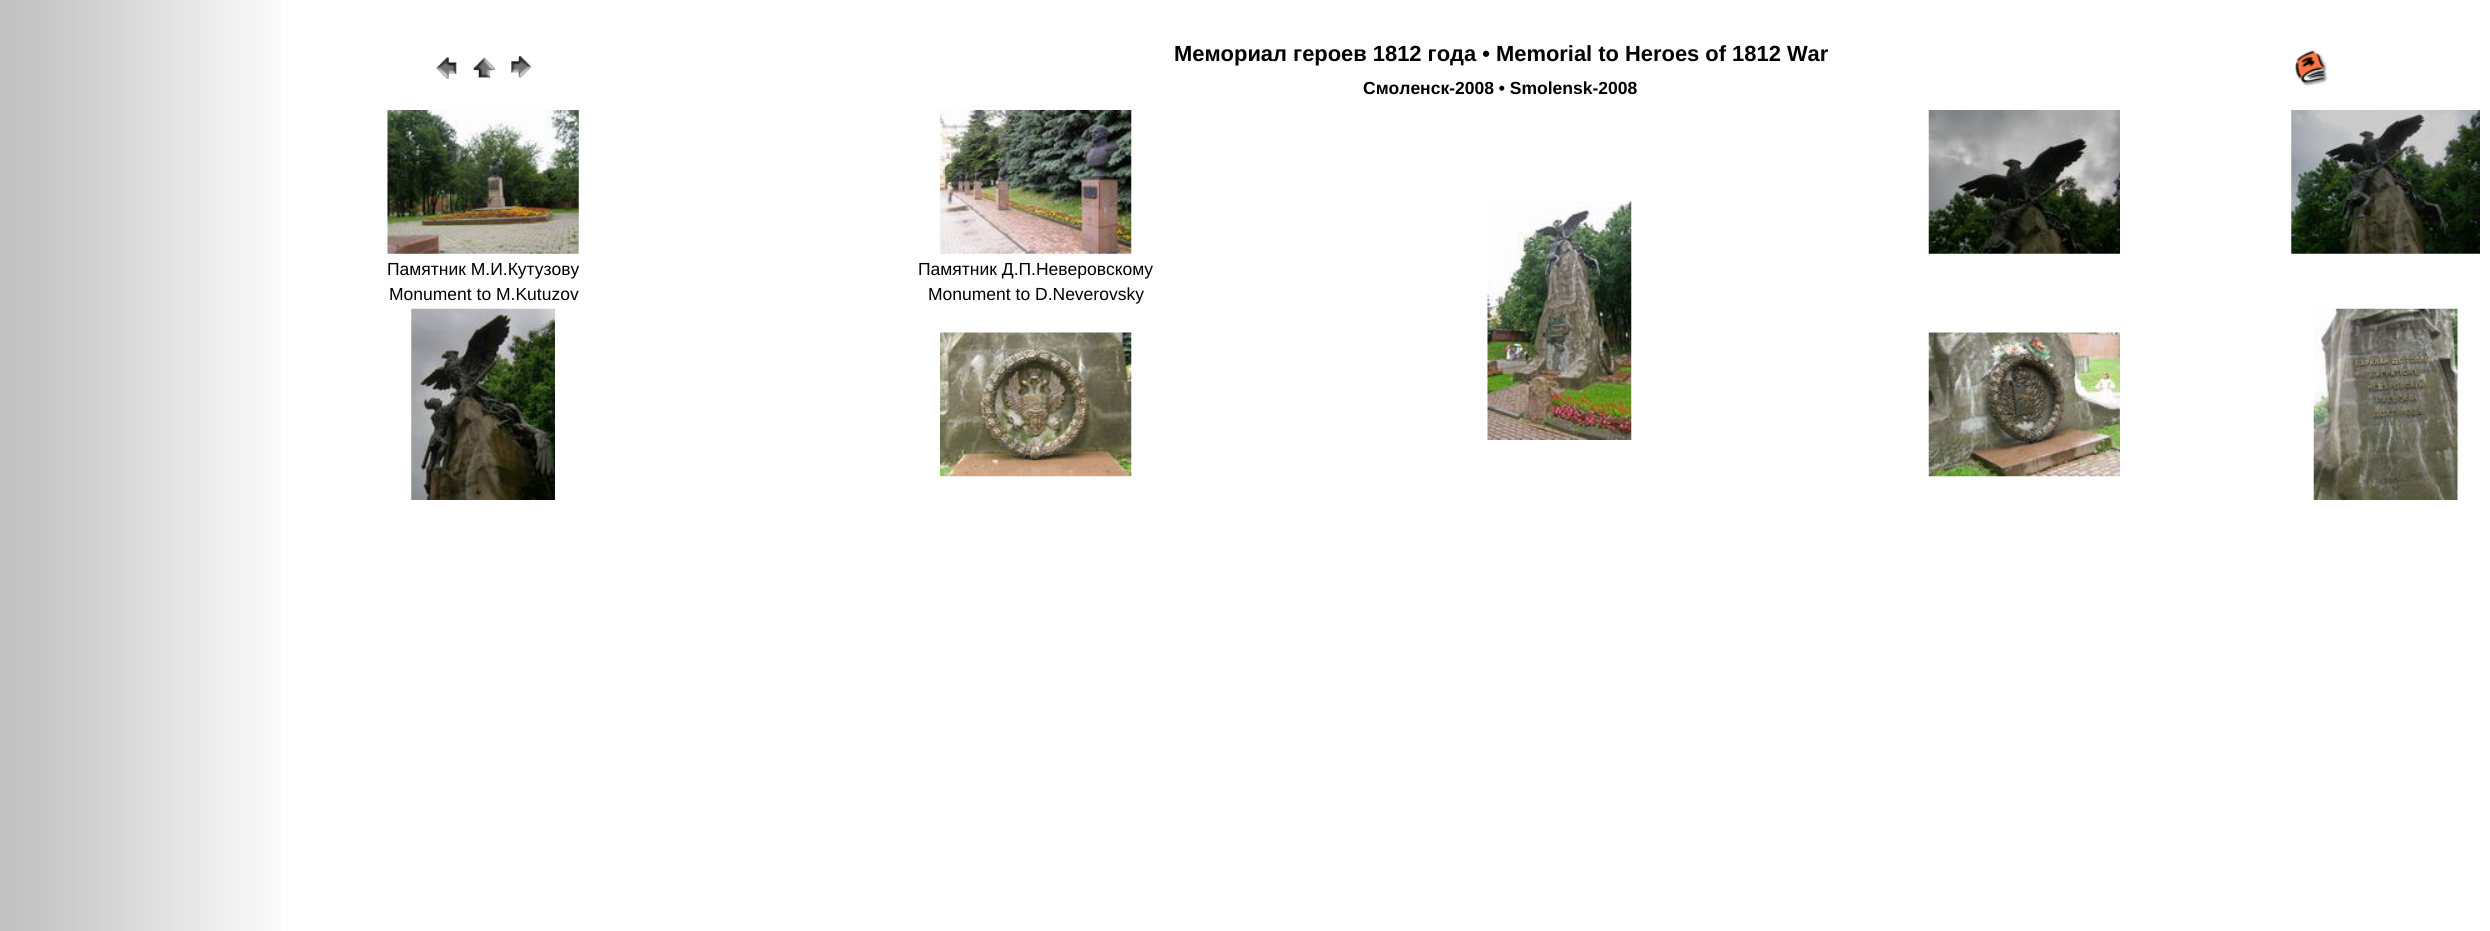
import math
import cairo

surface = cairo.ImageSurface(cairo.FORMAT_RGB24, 2490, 931)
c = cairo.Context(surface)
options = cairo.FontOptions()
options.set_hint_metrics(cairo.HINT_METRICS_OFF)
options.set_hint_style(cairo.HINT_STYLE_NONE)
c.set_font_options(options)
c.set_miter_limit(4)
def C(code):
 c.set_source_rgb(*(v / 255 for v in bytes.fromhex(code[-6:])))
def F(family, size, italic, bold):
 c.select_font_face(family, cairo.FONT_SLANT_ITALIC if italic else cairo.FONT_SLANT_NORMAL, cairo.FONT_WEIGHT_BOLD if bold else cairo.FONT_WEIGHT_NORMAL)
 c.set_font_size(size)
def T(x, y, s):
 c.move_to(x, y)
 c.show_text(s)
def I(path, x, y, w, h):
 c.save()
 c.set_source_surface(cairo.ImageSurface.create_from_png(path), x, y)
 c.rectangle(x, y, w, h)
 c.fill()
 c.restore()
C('ffffff')
c.paint()
I('1.png',0,0,281,931)
I('2.png',436,57,21,22)
I('3.png',473,57,23,21)
I('4.png',511,56,21,22)
F('Liberation Sans',21.9,0,1)
C('000000')
T(1174,61,'Мемориал героев 1812 года • Memorial to Heroes of 1812 War')
F('Liberation Sans',17.5,0,1)
T(1363,94,'Смоленск-2008 • Smolensk-2008')
I('5.png',2295,50,33,36)
I('6.png',387,110,192,144)
I('7.png',940,110,192,144)
I('8.png',1928,110,192,144)
I('9.png',2291,110,189,144)
I('10.png',1487,201,145,239)
F('Liberation Sans',17.5,0,0)
T(387,275,'Памятник М.И.Кутузову')
T(918,275,'Памятник Д.П.Неверовскому')
T(389,300,'Monument to M.Kutuzov')
T(928,300,'Monument to D.Neverovsky')
I('11.png',411,308,144,192)
I('12.png',940,332,192,145)
I('13.png',1928,332,192,145)
I('14.png',2313,308,145,192)
surface.write_to_png('o.png')
